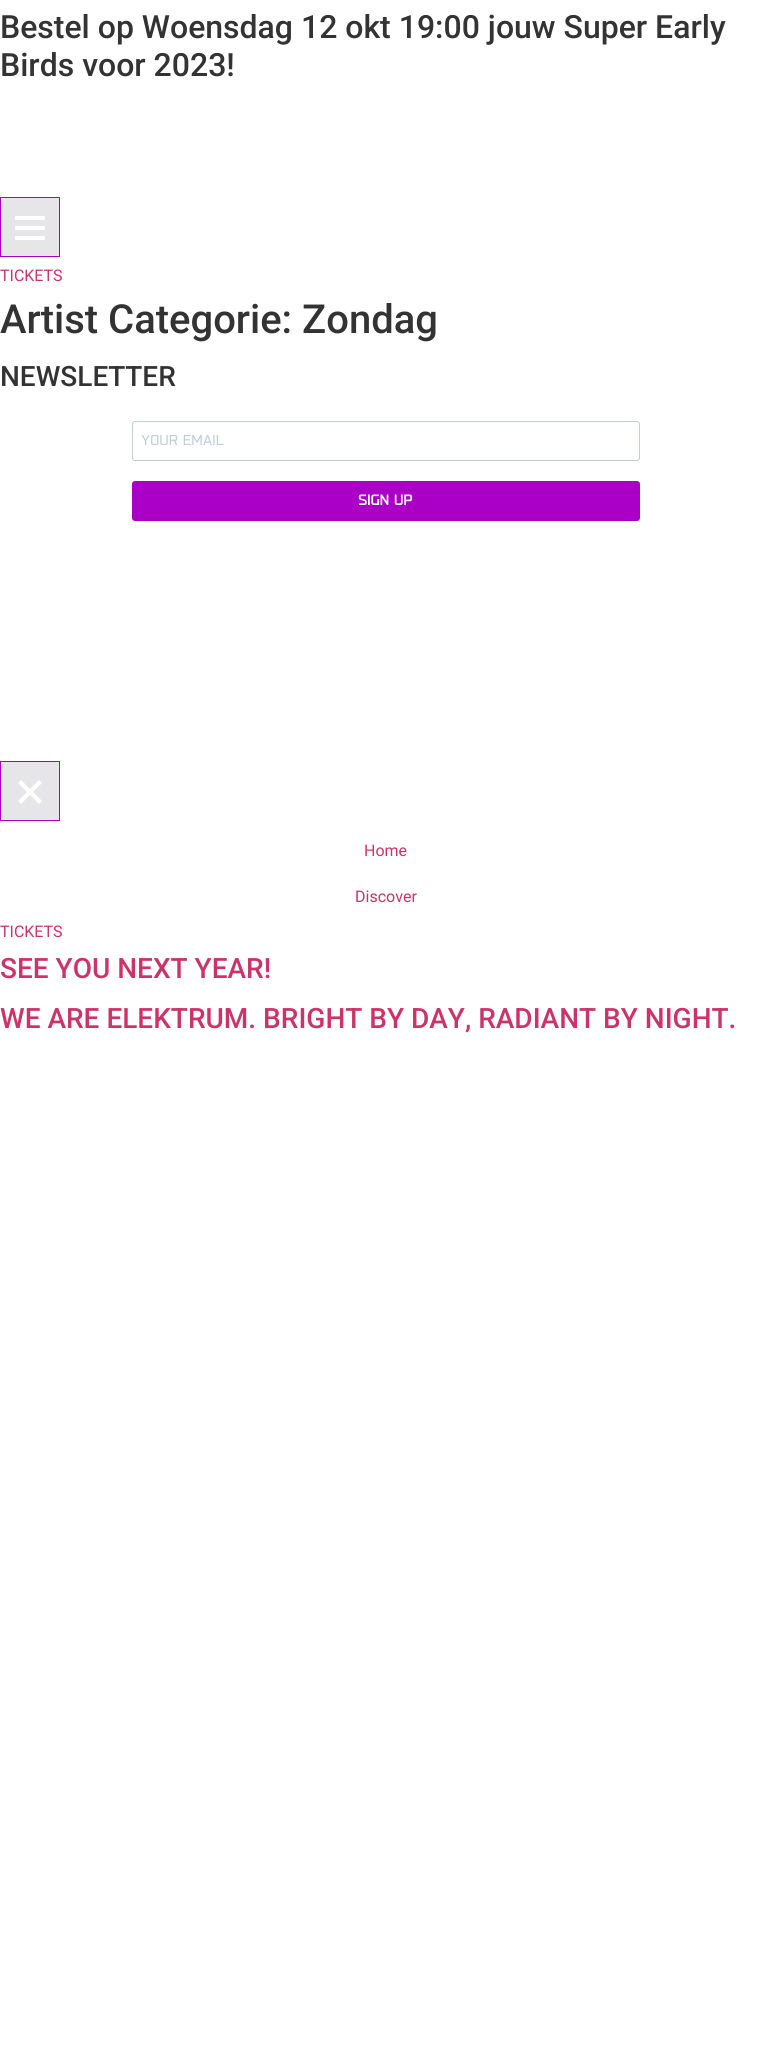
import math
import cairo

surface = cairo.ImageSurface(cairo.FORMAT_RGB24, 771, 2068)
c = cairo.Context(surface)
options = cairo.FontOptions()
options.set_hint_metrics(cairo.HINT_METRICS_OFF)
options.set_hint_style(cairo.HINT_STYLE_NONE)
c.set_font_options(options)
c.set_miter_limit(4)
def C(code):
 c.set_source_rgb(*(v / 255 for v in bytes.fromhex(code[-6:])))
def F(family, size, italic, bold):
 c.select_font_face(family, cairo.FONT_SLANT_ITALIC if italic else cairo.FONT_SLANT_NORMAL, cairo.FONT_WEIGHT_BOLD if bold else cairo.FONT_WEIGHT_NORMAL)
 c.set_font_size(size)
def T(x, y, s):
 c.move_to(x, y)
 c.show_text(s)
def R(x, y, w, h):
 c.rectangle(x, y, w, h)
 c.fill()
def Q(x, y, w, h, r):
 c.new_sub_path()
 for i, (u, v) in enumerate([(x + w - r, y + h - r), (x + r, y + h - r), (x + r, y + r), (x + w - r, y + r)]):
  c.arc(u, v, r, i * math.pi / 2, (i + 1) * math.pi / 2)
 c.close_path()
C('ffffff')
c.paint()
F('Roboto Medium',32,0,0)
C('333333')
T(0,38,'Bestel op Woensdag 12 okt 19:00 jouw Super Early')
T(0,76,'Birds voor 2023!')
C('e6e6e8')
c.rectangle(.5,197.5,59,59)
c.fill_preserve()
C('aa00c6')
c.set_line_width(1)
c.stroke()
C('ffffff')
R(15,216,30,4)
R(15,226,30,4)
R(15,236,30,4)
F('Roboto',16,0,0)
C('cc3366')
T(0,281,'TICKETS')
F('Roboto Medium',40,0,0)
C('333333')
T(0,333,'Artist Categorie: Zondag')
F('Roboto Medium',28,0,0)
T(0,386,'NEWSLETTER')
Q(132.5,421.5,507,39,2.5)
C('c0ccda')
c.stroke()
F('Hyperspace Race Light',16,0,0)
T(141,445,'YOUR EMAIL')
C('aa00c6')
Q(132,481,508,40,3)
c.fill()
F('Hyperspace Race Light',16,0,1)
C('ffffff')
T(358,505,'SIGN UP')
C('e6e6e8')
c.rectangle(.5,761.5,59,59)
c.fill_preserve()
C('aa00c6')
c.stroke()
C('ffffff')
c.new_path()
c.move_to(18,801)
c.line_to(39,780)
c.line_to(42,783)
c.line_to(21,804)
c.close_path()
c.fill()
c.new_path()
c.move_to(42,801)
c.line_to(21,780)
c.line_to(18,783)
c.line_to(39,804)
c.close_path()
c.fill()
F('Roboto',16,0,0)
C('cc3366')
T(364,856,'Home')
T(355,902,'Discover')
T(0,937,'TICKETS')
F('Roboto Medium',28,0,0)
T(0,978,'SEE YOU NEXT YEAR!')
T(0,1028,'WE ARE ELEKTRUM. BRIGHT BY DAY, RADIANT BY NIGHT.')
surface.write_to_png('o.png')
